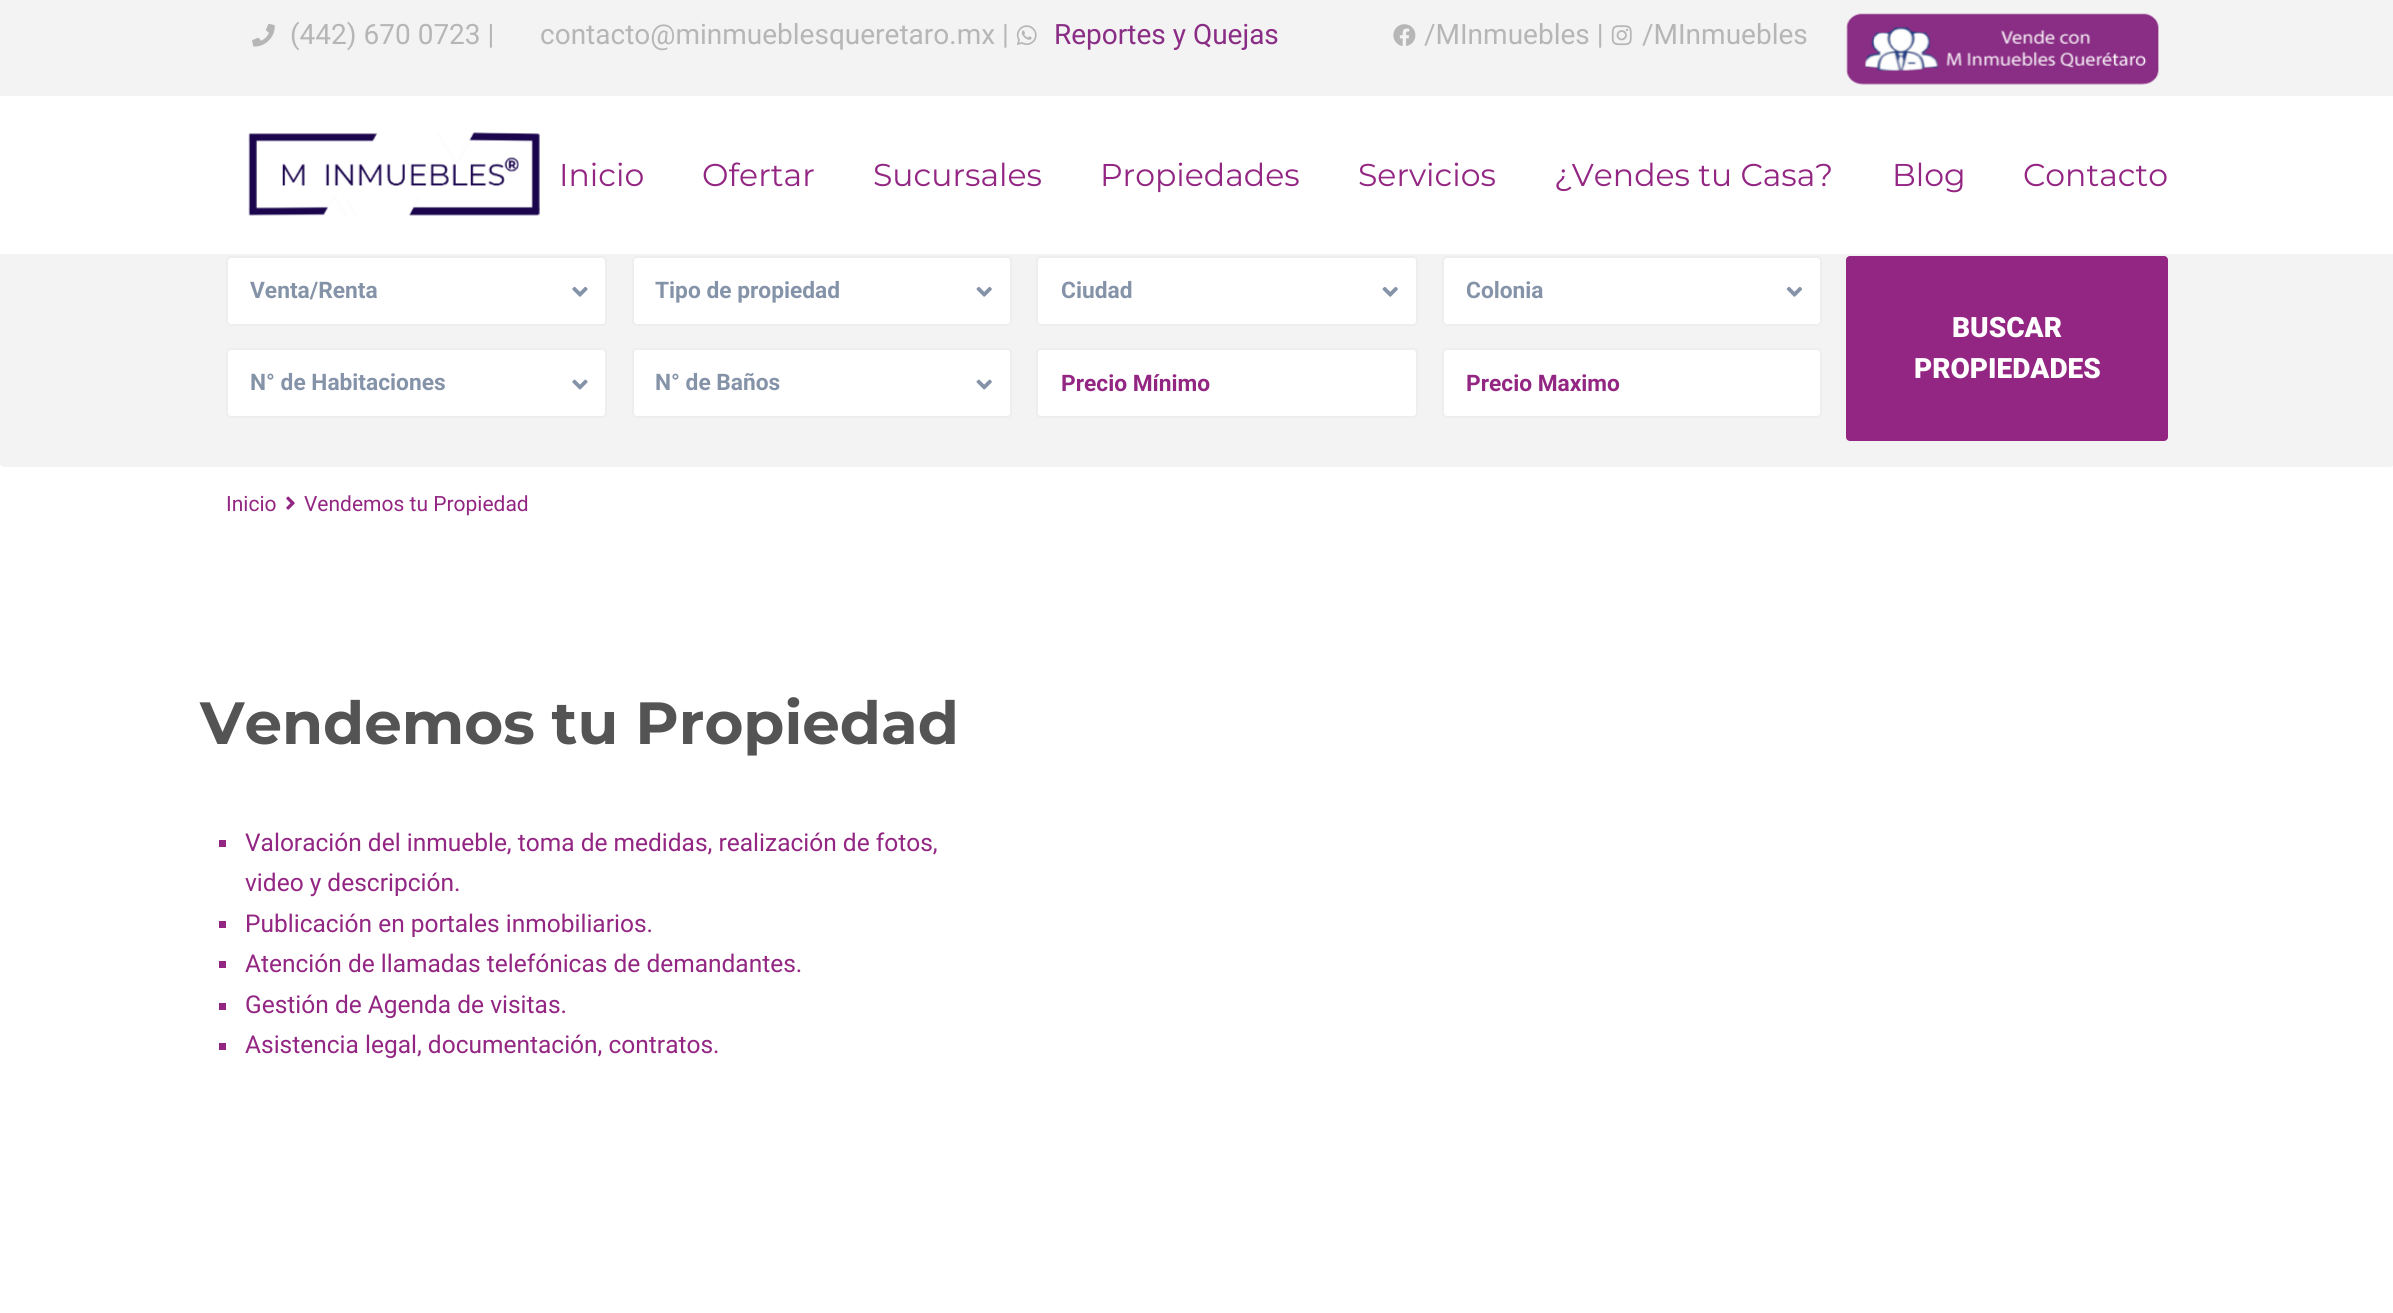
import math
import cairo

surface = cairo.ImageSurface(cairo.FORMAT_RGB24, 2393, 1313)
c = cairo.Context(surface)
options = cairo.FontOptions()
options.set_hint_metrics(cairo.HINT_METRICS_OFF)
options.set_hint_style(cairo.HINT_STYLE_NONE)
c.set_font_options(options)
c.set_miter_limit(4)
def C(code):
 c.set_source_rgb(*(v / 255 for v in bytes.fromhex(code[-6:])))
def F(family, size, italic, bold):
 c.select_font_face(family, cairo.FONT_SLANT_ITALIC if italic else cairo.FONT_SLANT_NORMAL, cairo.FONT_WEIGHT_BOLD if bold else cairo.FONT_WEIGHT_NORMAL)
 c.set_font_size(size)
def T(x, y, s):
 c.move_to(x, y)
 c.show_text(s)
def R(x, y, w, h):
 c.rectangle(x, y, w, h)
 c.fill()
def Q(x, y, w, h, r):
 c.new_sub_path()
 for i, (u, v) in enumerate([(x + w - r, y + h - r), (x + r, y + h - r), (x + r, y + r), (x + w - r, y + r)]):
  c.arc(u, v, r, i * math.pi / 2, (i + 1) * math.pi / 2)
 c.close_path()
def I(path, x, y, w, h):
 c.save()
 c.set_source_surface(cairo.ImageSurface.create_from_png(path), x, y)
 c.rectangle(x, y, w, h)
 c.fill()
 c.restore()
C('ffffff')
c.paint()
C('f3f3f3')
Q(0,229,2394,238,4)
c.fill()
C('ffffff')
R(0,229,2393,25)
C('f3f3f3')
R(0,0,2393,96)
I('1.png',252,23,23,24)
F('Roboto',28,0,0)
C('b6b6b6')
T(290,44,'(442) 670 0723 |')
T(540,44,'contacto@minmueblesqueretaro.mx |')
I('2.png',1016,25,21,20)
C('8a2e85')
T(1054,44,'Reportes y Quejas')
I('3.png',1393,24,23,22)
C('b6b6b6')
T(1424,44,'/MInmuebles |')
I('4.png',1611,25,21,21)
T(1642,44,'/MInmuebles')
I('5.png',1846,13,313,72)
I('6.png',248,132,292,84)
F('Montserrat',31.5,0,0)
C('932683')
T(559,186,'Inicio')
T(702,186,'Ofertar')
T(873,186,'Sucursales')
T(1100,186,'Propiedades')
T(1358,186,'Servicios')
T(1554,186,'¿Vendes tu Casa?')
T(1892,186,'Blog')
T(2023,186,'Contacto')
C('ffffff')
Q(227,257,379,68,4)
c.fill_preserve()
C('eeeeee')
c.stroke()
F('Roboto',22.75,0,1)
C('8593a9')
T(250,298,'Venta/Renta')
I('7.png',572,286,16,11)
C('ffffff')
Q(633,257,378,68,4)
c.fill_preserve()
C('eeeeee')
c.stroke()
C('8593a9')
T(655,298,'Tipo de propiedad')
I('8.png',976,286,16,11)
C('ffffff')
Q(1037,257,380,68,4)
c.fill_preserve()
C('eeeeee')
c.stroke()
C('8593a9')
T(1061,298,'Ciudad')
I('8.png',1382,286,16,11)
C('ffffff')
Q(1443,257,378,68,4)
c.fill_preserve()
C('eeeeee')
c.stroke()
C('8593a9')
T(1466,298,'Colonia')
I('9.png',1786,286,17,11)
C('ffffff')
Q(227,349,379,68,4)
c.fill_preserve()
C('eeeeee')
c.stroke()
C('8593a9')
T(250,390,'N° de Habitaciones')
I('10.png',572,379,16,11)
C('ffffff')
Q(633,349,378,68,4)
c.fill_preserve()
C('eeeeee')
c.stroke()
C('8593a9')
T(655,390,'N° de Baños')
I('11.png',976,379,16,11)
C('ffffff')
Q(1037,349,380,68,4)
c.fill_preserve()
C('eeeeee')
c.stroke()
C('932683')
T(1061,391,'Precio Mínimo')
C('ffffff')
Q(1443,349,378,68,4)
c.fill_preserve()
C('eeeeee')
c.stroke()
C('932683')
T(1466,391,'Precio Maximo')
Q(1846,256,322,185,4)
c.fill()
F('Roboto Black',28,0,0)
C('ffffff')
T(1952,337,'BUSCAR')
T(1914,378,'PROPIEDADES')
F('Roboto',21,0,0)
C('932683')
T(226,511,'Inicio')
I('12.png',286,496,9,14)
T(304,511,'Vendemos tu Propiedad')
F('Montserrat',59.5,0,1)
C('545454')
T(200,744,'Vendemos tu Propiedad')
C('932683')
R(219,840,7,7)
F('Roboto',24.5,0,0)
T(245,851,'Valoración del inmueble, toma de medidas, realización de fotos,')
T(245,891,'video y descripción.')
R(219,921,7,7)
T(245,932,'Publicación en portales inmobiliarios.')
R(219,961,7,7)
T(245,972,'Atención de llamadas telefónicas de demandantes.')
R(219,1003,7,7)
T(245,1013,'Gestión de Agenda de visitas.')
R(219,1043,7,7)
T(245,1053,'Asistencia legal, documentación, contratos.')
surface.write_to_png('o.png')
